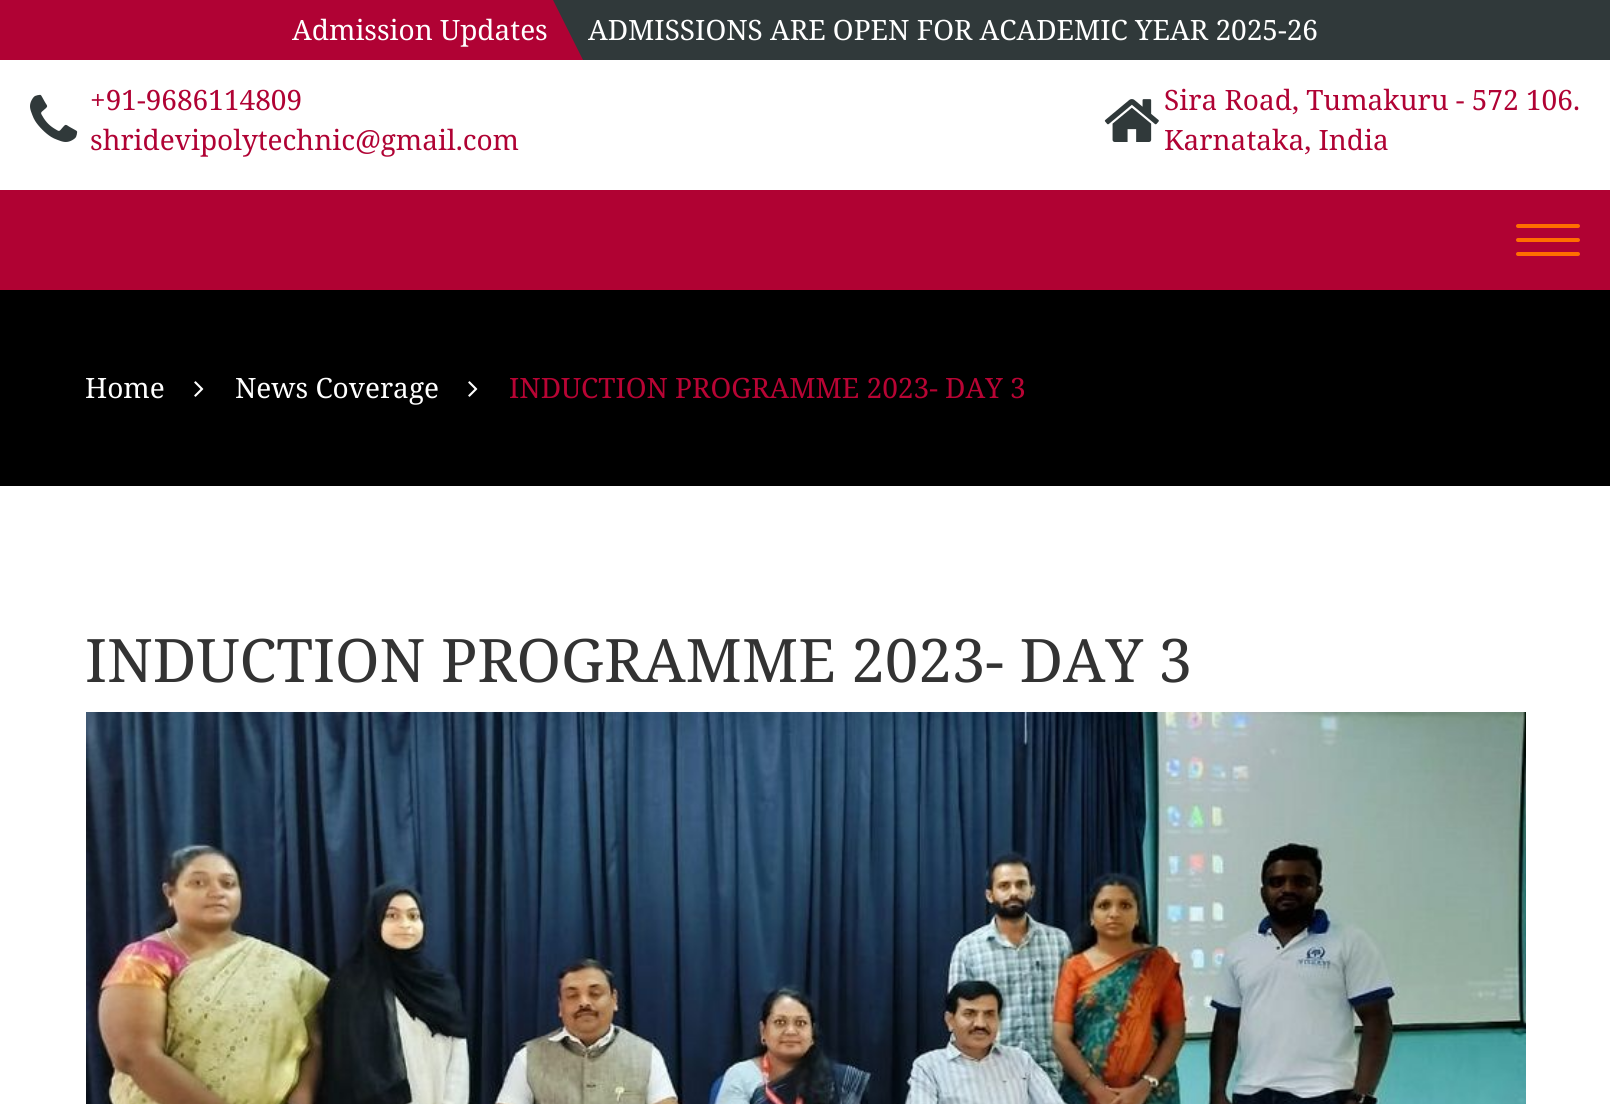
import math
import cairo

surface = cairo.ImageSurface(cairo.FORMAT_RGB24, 1610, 1104)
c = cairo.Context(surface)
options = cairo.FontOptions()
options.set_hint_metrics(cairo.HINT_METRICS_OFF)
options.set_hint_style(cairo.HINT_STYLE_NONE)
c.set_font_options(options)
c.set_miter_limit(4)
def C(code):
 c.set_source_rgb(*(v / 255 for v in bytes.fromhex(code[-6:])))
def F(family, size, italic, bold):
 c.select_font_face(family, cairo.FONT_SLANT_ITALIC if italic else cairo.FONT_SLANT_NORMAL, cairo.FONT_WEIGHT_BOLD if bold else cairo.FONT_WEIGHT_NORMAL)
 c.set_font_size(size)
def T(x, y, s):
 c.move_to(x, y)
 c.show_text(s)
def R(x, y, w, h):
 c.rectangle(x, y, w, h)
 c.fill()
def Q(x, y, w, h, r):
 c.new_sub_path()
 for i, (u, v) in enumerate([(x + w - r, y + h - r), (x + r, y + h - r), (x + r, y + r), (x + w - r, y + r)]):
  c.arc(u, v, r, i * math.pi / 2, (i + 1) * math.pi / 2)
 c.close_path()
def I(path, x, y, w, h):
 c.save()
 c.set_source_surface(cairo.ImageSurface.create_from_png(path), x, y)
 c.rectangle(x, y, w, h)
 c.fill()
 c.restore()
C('ffffff')
c.paint()
C('30393a')
R(553,0,1057,60)
C('b00234')
c.new_path()
c.move_to(-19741,0)
c.line_to(553,0)
c.line_to(583,60)
c.line_to(-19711,60)
c.close_path()
c.fill()
F('Noto Serif',28,0,0)
C('ffffff')
T(292,40,'Admission Updates')
T(588,40,'ADMISSIONS ARE OPEN FOR ACADEMIC YEAR 2025-26')
I('1.png',30,94,48,48)
C('b00234')
T(90,110,'+91-9686114809')
T(90,150,'shridevipolytechnic@gmail.com')
I('2.png',1104,99,55,43)
T(1164,110,'Sira Road, Tumakuru - 572 106.')
T(1164,150,'Karnataka, India')
C('b00233')
R(0,190,1610,100)
C('ff6f00')
Q(1516,224,64,4,2)
c.fill()
Q(1516,238,64,4,2)
c.fill()
Q(1516,252,64,4,2)
c.fill()
C('000000')
R(0,290,1610,196)
C('ffffff')
T(85,398,'Home')
I('3.png',194,381,10,16)
T(235,398,'News Coverage')
I('3.png',468,381,10,16)
C('b80434')
T(509,398,'INDUCTION PROGRAMME 2023- DAY 3')
F('Noto Serif',60,0,0)
C('333333')
T(85,682,'INDUCTION PROGRAMME 2023- DAY 3')
I('4.png',86,712,1440,392)
surface.write_to_png('o.png')
